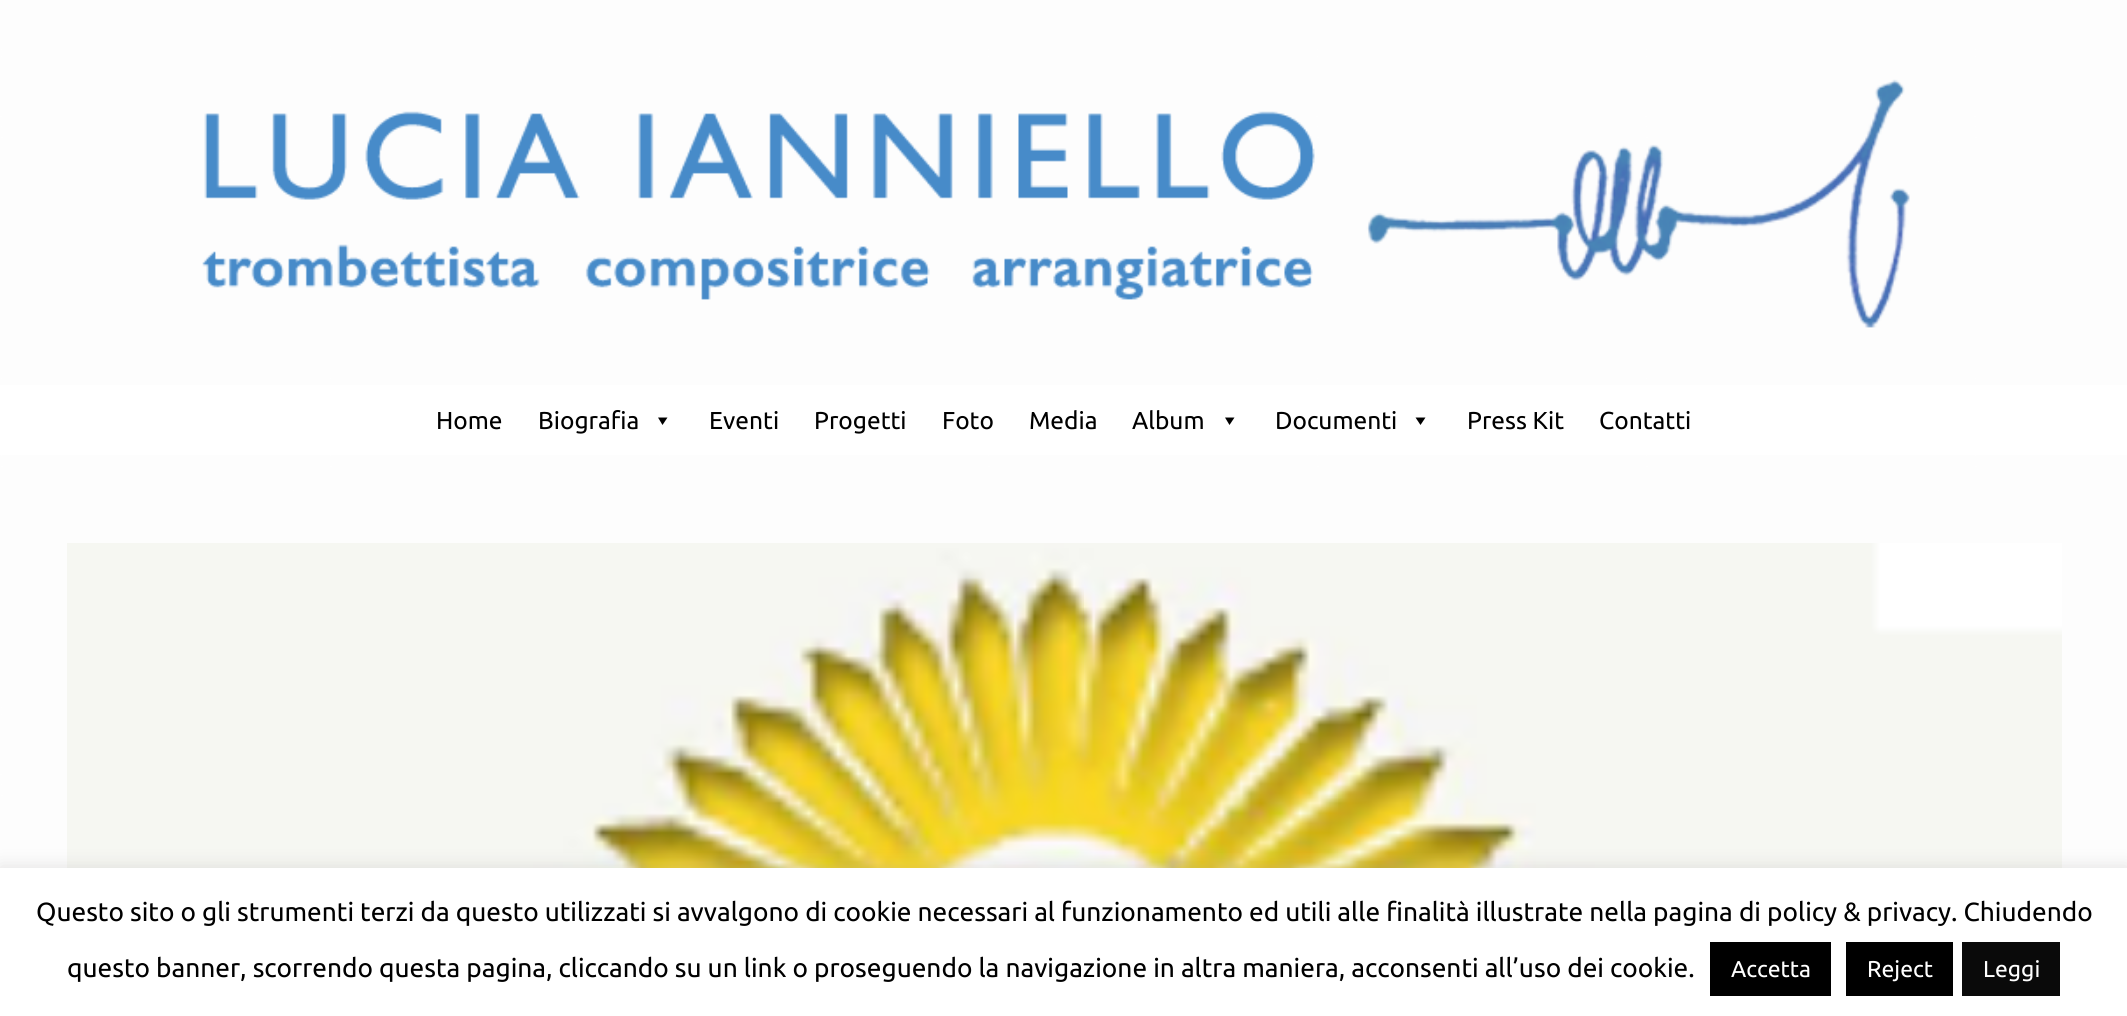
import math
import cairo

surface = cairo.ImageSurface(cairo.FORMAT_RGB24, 2127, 1016)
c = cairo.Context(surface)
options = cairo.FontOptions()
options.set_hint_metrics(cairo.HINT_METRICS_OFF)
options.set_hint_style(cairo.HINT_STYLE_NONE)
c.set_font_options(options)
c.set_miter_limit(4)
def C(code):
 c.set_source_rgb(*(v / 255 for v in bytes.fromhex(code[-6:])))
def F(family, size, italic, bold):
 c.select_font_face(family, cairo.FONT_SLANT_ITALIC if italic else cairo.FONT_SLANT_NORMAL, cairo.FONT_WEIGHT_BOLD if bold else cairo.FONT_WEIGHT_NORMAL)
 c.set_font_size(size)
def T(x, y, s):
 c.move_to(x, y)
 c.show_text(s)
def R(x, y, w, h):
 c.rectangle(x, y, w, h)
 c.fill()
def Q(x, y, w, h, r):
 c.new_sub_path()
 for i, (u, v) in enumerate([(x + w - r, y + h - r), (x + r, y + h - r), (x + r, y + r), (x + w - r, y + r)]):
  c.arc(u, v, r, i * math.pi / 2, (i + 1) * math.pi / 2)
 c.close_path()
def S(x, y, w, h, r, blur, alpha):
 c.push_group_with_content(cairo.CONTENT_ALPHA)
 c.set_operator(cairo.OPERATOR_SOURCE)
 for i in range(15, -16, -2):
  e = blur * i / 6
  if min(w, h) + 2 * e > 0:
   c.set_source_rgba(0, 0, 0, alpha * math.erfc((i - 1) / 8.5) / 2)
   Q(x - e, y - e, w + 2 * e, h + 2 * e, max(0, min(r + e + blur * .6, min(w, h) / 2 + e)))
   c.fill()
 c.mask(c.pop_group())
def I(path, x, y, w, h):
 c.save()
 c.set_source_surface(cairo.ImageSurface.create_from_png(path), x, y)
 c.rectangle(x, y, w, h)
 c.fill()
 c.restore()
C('ffffff')
c.paint()
I('1.png',0,0,2127,868)
c.set_source_rgba(1,1,1,0.85)
R(0,0,2127,385)
I('2.png',202,79,1708,249)
C('ffffff')
R(0,385,2127,70)
F('Ubuntu',24.5,0,0)
C('000000')
T(436,429,'Home')
T(538,429,'Biografia')
c.new_path()
c.move_to(667.5,417.5)
c.line_to(662.5,425)
c.line_to(658,417.5)
c.close_path()
c.fill()
T(709,429,'Eventi')
T(814,429,'Progetti')
T(942,429,'Foto')
T(1029,429,'Media')
T(1132,429,'Album')
c.new_path()
c.move_to(1234.5,417.5)
c.line_to(1229.5,425)
c.line_to(1225,417.5)
c.close_path()
c.fill()
T(1275,429,'Documenti')
c.new_path()
c.move_to(1425.5,417.5)
c.line_to(1420.5,425)
c.line_to(1415.5,417.5)
c.close_path()
c.fill()
T(1467,429,'Press Kit')
T(1599,429,'Contatti')
c.set_source_rgba(1,1,1,0.85)
R(0,455,2127,413)
I('3.png',67,543,1995,325)
C('acabab')
S(0,866,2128,149,0,9,.3)
C('ffffff')
R(0,868,2127,148)
F('Ubuntu',26.25,0,0)
C('000000')
T(36,921,'Questo sito o gli strumenti terzi da questo utilizzati si avvalgono di cookie necessari al funzionamento ed utili alle finalità illustrate nella pagina di policy & privacy. Chiudendo')
T(67,977,'questo banner, scorrendo questa pagina, cliccando su un link o proseguendo la navigazione in altra maniera, acconsenti all’uso dei cookie.')
R(1710,942,121,54)
F('Ubuntu',23,0,0)
C('ffffff')
T(1731,977,'Accetta')
C('000000')
R(1846,942,107,54)
C('ffffff')
T(1867,977,'Reject')
C('0a0a0a')
R(1962,942,98,54)
C('ffffff')
T(1983,977,'Leggi')
surface.write_to_png('o.png')
